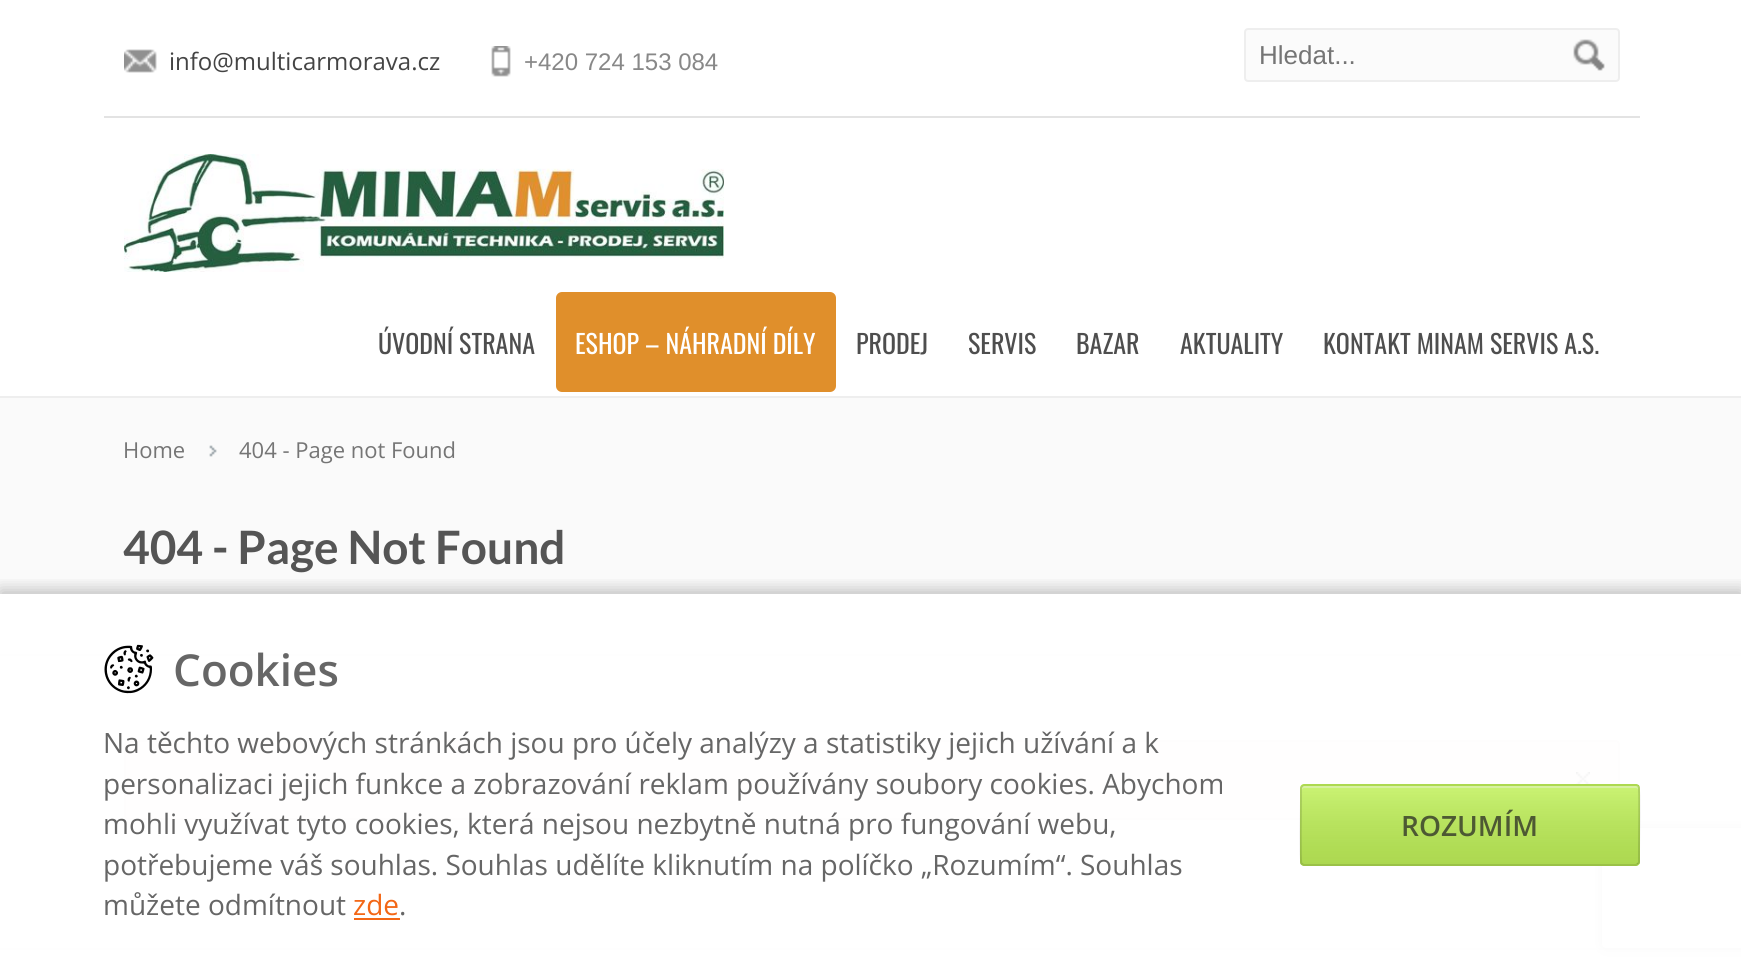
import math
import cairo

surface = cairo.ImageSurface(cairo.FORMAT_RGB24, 1741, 976)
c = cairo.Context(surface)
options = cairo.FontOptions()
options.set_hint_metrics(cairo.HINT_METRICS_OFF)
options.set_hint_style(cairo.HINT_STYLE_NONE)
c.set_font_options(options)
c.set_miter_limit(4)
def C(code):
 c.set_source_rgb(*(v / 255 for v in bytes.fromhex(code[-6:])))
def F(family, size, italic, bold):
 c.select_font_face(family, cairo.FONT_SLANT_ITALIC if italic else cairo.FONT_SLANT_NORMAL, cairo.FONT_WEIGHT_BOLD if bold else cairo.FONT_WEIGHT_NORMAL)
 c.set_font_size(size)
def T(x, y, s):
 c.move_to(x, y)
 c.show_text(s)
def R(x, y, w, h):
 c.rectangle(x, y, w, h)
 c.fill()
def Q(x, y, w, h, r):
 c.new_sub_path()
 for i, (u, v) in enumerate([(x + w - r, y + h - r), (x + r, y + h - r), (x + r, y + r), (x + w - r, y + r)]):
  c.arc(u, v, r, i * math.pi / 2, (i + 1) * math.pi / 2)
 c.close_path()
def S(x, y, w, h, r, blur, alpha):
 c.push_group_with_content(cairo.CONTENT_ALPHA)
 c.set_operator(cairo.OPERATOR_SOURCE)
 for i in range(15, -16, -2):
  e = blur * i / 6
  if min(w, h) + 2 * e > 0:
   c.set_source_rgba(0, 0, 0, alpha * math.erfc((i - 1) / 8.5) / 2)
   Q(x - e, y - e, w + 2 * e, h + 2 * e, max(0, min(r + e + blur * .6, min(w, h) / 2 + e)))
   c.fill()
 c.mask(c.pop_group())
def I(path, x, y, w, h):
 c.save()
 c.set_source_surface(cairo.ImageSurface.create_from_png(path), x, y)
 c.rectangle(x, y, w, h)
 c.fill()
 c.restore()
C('ffffff')
c.paint()
C('e3e3e3')
R(104,116,1536,2)
I('1.png',124,49,33,24)
F('Open Sans',24,0,0)
C('444444')
T(169,70,'info@multicarmorava.cz')
I('2.png',491,46,20,31)
F('Liberation Sans',24,0,0)
C('888888')
T(524,70,'+420 724 153 084')
C('fbfbfb')
Q(1245,29,374,52,3)
c.fill_preserve()
C('eeeeee')
c.stroke()
F('Liberation Sans',26,0,0)
C('757575')
T(1259,64,'Hledat...')
I('3.png',1573,39,32,32)
I('4.png',124,154,600,118)
F('Oswald',26,0,0)
C('4e4e4e')
T(378,354,'ÚVODNÍ STRANA')
C('e08f2b')
Q(556,292,280,100,6)
c.fill()
C('ffffff')
T(575,354,'ESHOP – NÁHRADNÍ DÍLY')
C('4e4e4e')
T(856,354,'PRODEJ')
T(968,354,'SERVIS')
T(1076,354,'BAZAR')
T(1180,354,'AKTUALITY')
T(1323,354,'KONTAKT MINAM SERVIS A.S.')
C('fafafa')
R(0,398,1741,256)
C('eeeeee')
R(0,396,1741,2)
R(0,654,1741,2)
I('5.png',209,445,8,12)
F('Open Sans',22,0,0)
C('757575')
T(123,458,'Home')
T(239,458,'404 - Page not Found')
F('Lato',46,0,1)
C('555555')
T(123,564,'404 - Page Not Found')
C('ffe8e8')
Q(125,741,1494,78,3)
c.fill_preserve()
C('efd9d9')
c.stroke()
I('6.png',1576,772,14,12)
C('fafafa')
R(0,950,1741,26)
C('e9e9e9')
R(0,948,1741,2)
c.save()
c.rectangle(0,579,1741,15)
c.clip()
C('000000')
S(0,590,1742,382,0,8,.25)
c.restore()
c.save()
c.set_fill_rule(cairo.FILL_RULE_EVEN_ODD)
c.new_path()
c.move_to(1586,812)
c.line_to(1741,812)
c.line_to(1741,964)
c.line_to(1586,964)
c.close_path()
c.move_to(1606,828)
c.line_to(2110,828)
c.curve_to(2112,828,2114,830,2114,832)
c.line_to(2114,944)
c.curve_to(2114,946,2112,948,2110,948)
c.line_to(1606,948)
c.curve_to(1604,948,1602,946,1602,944)
c.line_to(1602,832)
c.curve_to(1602,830,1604,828,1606,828)
c.close_path()
c.clip()
C('808080')
S(1602,828,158,120,4,5,1)
c.restore()
c.set_source_rgba(1,1,1,0.95)
R(0,594,1741,382)
I('7.png',104,644,50,50)
F('Open Sans SemiBold',44,0,0)
C('666666')
T(173,686,'Cookies')
F('Open Sans',28,0,0)
T(103,753,'Na těchto webových stránkách jsou pro účely analýzy a statistiky jejich užívání a k')
T(103,794,'personalizaci jejich funkce a zobrazování reklam používány soubory cookies. Abychom')
T(103,834,'mohli využívat tyto cookies, která nejsou nezbytně nutná pro fungování webu,')
T(103,875,'potřebujeme váš souhlas. Souhlas udělíte kliknutím na políčko „Rozumím“. Souhlas')
T(103,915,'můžete odmítnout')
C('f36716')
T(353,915,'zde')
R(354,918,46,2)
C('666666')
T(399,915,'.')
C('c0f159')
Q(1300,784,340,82,4)
c.fill()
gradient = cairo.LinearGradient(1470,786,1470,864)
gradient.add_color_stop_rgba(0,1,1,1,.16)
gradient.add_color_stop_rgba(1,0,0,0,.1)
c.set_source(gradient)
R(1300,786,340,78)
C('d8f1a3')
c.new_path()
c.move_to(1304,788)
c.line_to(1636,788)
c.curve_to(1637,788,1638,789,1638,790)
c.line_to(1638,788)
c.curve_to(1638,787,1637,786,1636,786)
c.line_to(1304,786)
c.curve_to(1303,786,1302,787,1302,788)
c.line_to(1302,790)
c.curve_to(1302,789,1303,788,1304,788)
c.close_path()
c.fill()
c.new_path()
c.move_to(1302,786)
c.line_to(1304,785)
c.line_to(1636.5,785)
c.line_to(1638,786)
c.set_source_rgba(0,0,0,0.1)
c.stroke()
c.new_path()
c.move_to(1638,786)
c.line_to(1638.5,786)
c.curve_to(1640,788,1639,842.5,1639,849.5)
c.line_to(1639,862)
c.line_to(1638,864)
c.set_source_rgba(0,0,0,0.13)
c.stroke()
c.new_path()
c.move_to(1638,864)
c.line_to(1636,865)
c.line_to(1303.5,865)
c.line_to(1302,864)
c.set_source_rgba(0,0,0,0.2)
c.stroke()
c.new_path()
c.move_to(1302,864)
c.line_to(1301.5,864)
c.curve_to(1300,862,1301,807.5,1301,800.5)
c.line_to(1301,788)
c.line_to(1302,786)
c.set_source_rgba(0,0,0,0.13)
c.stroke()
F('Open Sans SemiBold',28,0,0)
C('4d5933')
T(1401,836,'ROZUMÍM')
surface.write_to_png('o.png')
